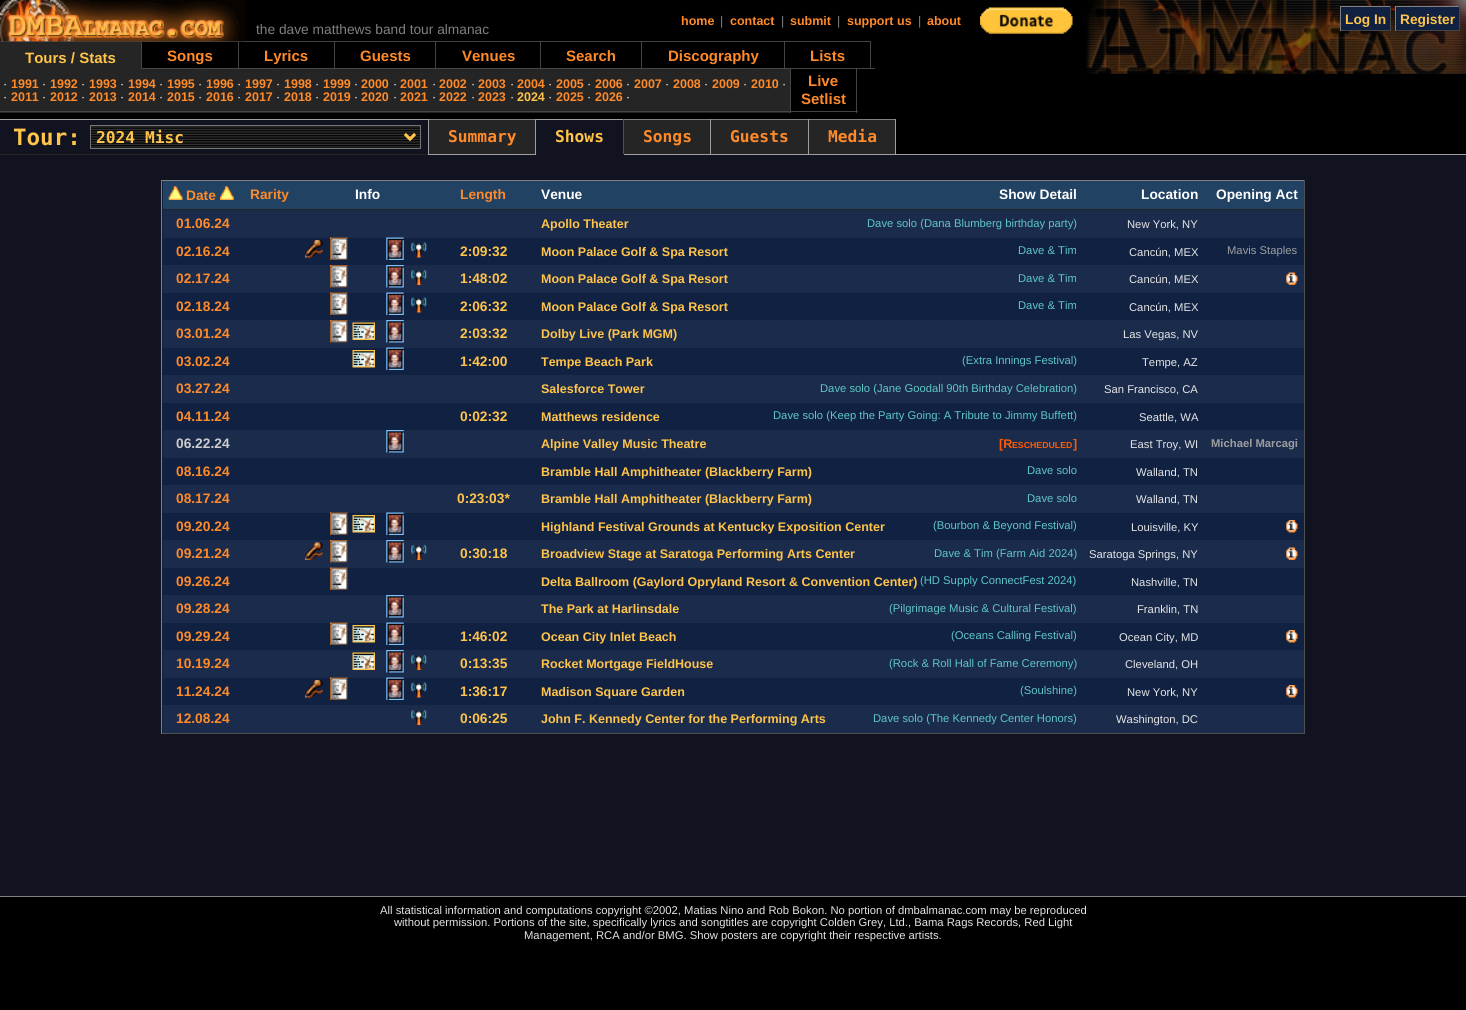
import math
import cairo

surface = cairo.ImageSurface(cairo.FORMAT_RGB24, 1466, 1010)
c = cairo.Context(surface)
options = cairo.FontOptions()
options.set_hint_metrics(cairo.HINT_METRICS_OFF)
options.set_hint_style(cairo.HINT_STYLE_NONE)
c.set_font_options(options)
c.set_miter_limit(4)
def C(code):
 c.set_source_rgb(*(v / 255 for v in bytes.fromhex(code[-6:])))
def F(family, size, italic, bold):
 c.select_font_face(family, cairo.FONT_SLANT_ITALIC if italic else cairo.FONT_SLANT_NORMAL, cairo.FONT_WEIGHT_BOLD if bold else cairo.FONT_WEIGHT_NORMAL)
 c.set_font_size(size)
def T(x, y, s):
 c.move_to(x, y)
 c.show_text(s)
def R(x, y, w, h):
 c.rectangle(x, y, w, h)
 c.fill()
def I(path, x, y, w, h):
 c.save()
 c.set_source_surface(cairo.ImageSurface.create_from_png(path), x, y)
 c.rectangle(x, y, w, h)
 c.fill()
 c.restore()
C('000000')
c.paint()
F('Liberation Sans',12.5,0,1)
C('ff8a29')
T(681,25,'home')
F('Liberation Sans',12.5,0,0)
C('808080')
T(720,25,'|')
F('Liberation Sans',12.5,0,1)
C('ff8a29')
T(730,25,'contact')
F('Liberation Sans',12.5,0,0)
C('808080')
T(781,25,'|')
F('Liberation Sans',12.5,0,1)
C('ff8a29')
T(790,25,'submit')
F('Liberation Sans',12.5,0,0)
C('808080')
T(837,25,'|')
F('Liberation Sans',12.5,0,1)
C('ff8a29')
T(847,25,'support us')
F('Liberation Sans',12.5,0,0)
C('808080')
T(918,25,'|')
F('Liberation Sans',12.5,0,1)
C('ff8a29')
T(927,25,'about')
I('1.png',980,7,93,27)
C('444444')
R(0,41,870,1)
R(141,68,734,1)
R(141,41,1,28)
R(238,41,1,28)
I('2.png',0,0,245,42)
F('Liberation Sans',13.75,0,0)
C('808080')
T(256,34,'the dave matthews band tour almanac')
I('3.png',1086,0,380,74)
C('102142')
R(1341,7,49,23)
C('808080')
R(1340,6,51,1)
C('444444')
R(1390,6,1,25)
R(1340,30,51,1)
C('808080')
R(1340,6,1,25)
F('Liberation Sans',13.75,0,1)
C('ffc449')
T(1345,24,'Log In')
C('102142')
R(1396,7,63,23)
C('808080')
R(1395,6,65,1)
C('444444')
R(1459,6,1,25)
R(1395,30,65,1)
C('808080')
R(1395,6,1,25)
C('ffc449')
T(1400,24,'Register')
C('252525')
R(0,42,141,27)
F('Liberation Sans',15,0,1)
C('ffc449')
T(25,63,'Tours / Stats')
C('ff8a29')
T(167,61,'Songs')
T(264,61,'Lyrics')
C('444444')
R(334,41,1,28)
C('ff8a29')
T(360,61,'Guests')
C('444444')
R(435,41,1,28)
C('ff8a29')
T(462,61,'Venues')
C('444444')
R(540,41,1,28)
C('ff8a29')
T(566,61,'Search')
C('444444')
R(641,41,1,28)
C('ff8a29')
T(668,61,'Discography')
C('444444')
R(784,41,1,28)
C('ff8a29')
T(810,61,'Lists')
C('444444')
R(870,41,1,28)
C('252525')
R(0,69,790,44)
C('444444')
R(790,69,1,44)
R(0,111,791,1)
F('Liberation Sans',12.5,0,0)
C('ffffff')
T(3,88,'·')
F('Liberation Sans',12.5,0,1)
C('ff8a29')
T(11,88,'1991')
F('Liberation Sans',12.5,0,0)
C('ffffff')
T(42,88,'·')
F('Liberation Sans',12.5,0,1)
C('ff8a29')
T(50,88,'1992')
F('Liberation Sans',12.5,0,0)
C('ffffff')
T(81,88,'·')
F('Liberation Sans',12.5,0,1)
C('ff8a29')
T(89,88,'1993')
F('Liberation Sans',12.5,0,0)
C('ffffff')
T(120,88,'·')
F('Liberation Sans',12.5,0,1)
C('ff8a29')
T(128,88,'1994')
F('Liberation Sans',12.5,0,0)
C('ffffff')
T(159,88,'·')
F('Liberation Sans',12.5,0,1)
C('ff8a29')
T(167,88,'1995')
F('Liberation Sans',12.5,0,0)
C('ffffff')
T(198,88,'·')
F('Liberation Sans',12.5,0,1)
C('ff8a29')
T(206,88,'1996')
F('Liberation Sans',12.5,0,0)
C('ffffff')
T(237,88,'·')
F('Liberation Sans',12.5,0,1)
C('ff8a29')
T(245,88,'1997')
F('Liberation Sans',12.5,0,0)
C('ffffff')
T(276,88,'·')
F('Liberation Sans',12.5,0,1)
C('ff8a29')
T(284,88,'1998')
F('Liberation Sans',12.5,0,0)
C('ffffff')
T(315,88,'·')
F('Liberation Sans',12.5,0,1)
C('ff8a29')
T(323,88,'1999')
F('Liberation Sans',12.5,0,0)
C('ffffff')
T(354,88,'·')
F('Liberation Sans',12.5,0,1)
C('ff8a29')
T(361,88,'2000')
F('Liberation Sans',12.5,0,0)
C('ffffff')
T(393,88,'·')
F('Liberation Sans',12.5,0,1)
C('ff8a29')
T(400,88,'2001')
F('Liberation Sans',12.5,0,0)
C('ffffff')
T(432,88,'·')
F('Liberation Sans',12.5,0,1)
C('ff8a29')
T(439,88,'2002')
F('Liberation Sans',12.5,0,0)
C('ffffff')
T(471,88,'·')
F('Liberation Sans',12.5,0,1)
C('ff8a29')
T(478,88,'2003')
F('Liberation Sans',12.5,0,0)
C('ffffff')
T(510,88,'·')
F('Liberation Sans',12.5,0,1)
C('ff8a29')
T(517,88,'2004')
F('Liberation Sans',12.5,0,0)
C('ffffff')
T(548,88,'·')
F('Liberation Sans',12.5,0,1)
C('ff8a29')
T(556,88,'2005')
F('Liberation Sans',12.5,0,0)
C('ffffff')
T(587,88,'·')
F('Liberation Sans',12.5,0,1)
C('ff8a29')
T(595,88,'2006')
F('Liberation Sans',12.5,0,0)
C('ffffff')
T(626,88,'·')
F('Liberation Sans',12.5,0,1)
C('ff8a29')
T(634,88,'2007')
F('Liberation Sans',12.5,0,0)
C('ffffff')
T(665,88,'·')
F('Liberation Sans',12.5,0,1)
C('ff8a29')
T(673,88,'2008')
F('Liberation Sans',12.5,0,0)
C('ffffff')
T(704,88,'·')
F('Liberation Sans',12.5,0,1)
C('ff8a29')
T(712,88,'2009')
F('Liberation Sans',12.5,0,0)
C('ffffff')
T(743,88,'·')
F('Liberation Sans',12.5,0,1)
C('ff8a29')
T(751,88,'2010')
F('Liberation Sans',12.5,0,0)
C('ffffff')
T(782,88,'·')
T(3,101,'·')
F('Liberation Sans',12.5,0,1)
C('ff8a29')
T(11,101,'2011')
F('Liberation Sans',12.5,0,0)
C('ffffff')
T(42,101,'·')
F('Liberation Sans',12.5,0,1)
C('ff8a29')
T(50,101,'2012')
F('Liberation Sans',12.5,0,0)
C('ffffff')
T(81,101,'·')
F('Liberation Sans',12.5,0,1)
C('ff8a29')
T(89,101,'2013')
F('Liberation Sans',12.5,0,0)
C('ffffff')
T(120,101,'·')
F('Liberation Sans',12.5,0,1)
C('ff8a29')
T(128,101,'2014')
F('Liberation Sans',12.5,0,0)
C('ffffff')
T(159,101,'·')
F('Liberation Sans',12.5,0,1)
C('ff8a29')
T(167,101,'2015')
F('Liberation Sans',12.5,0,0)
C('ffffff')
T(198,101,'·')
F('Liberation Sans',12.5,0,1)
C('ff8a29')
T(206,101,'2016')
F('Liberation Sans',12.5,0,0)
C('ffffff')
T(237,101,'·')
F('Liberation Sans',12.5,0,1)
C('ff8a29')
T(245,101,'2017')
F('Liberation Sans',12.5,0,0)
C('ffffff')
T(276,101,'·')
F('Liberation Sans',12.5,0,1)
C('ff8a29')
T(284,101,'2018')
F('Liberation Sans',12.5,0,0)
C('ffffff')
T(315,101,'·')
F('Liberation Sans',12.5,0,1)
C('ff8a29')
T(323,101,'2019')
F('Liberation Sans',12.5,0,0)
C('ffffff')
T(354,101,'·')
F('Liberation Sans',12.5,0,1)
C('ff8a29')
T(361,101,'2020')
F('Liberation Sans',12.5,0,0)
C('ffffff')
T(393,101,'·')
F('Liberation Sans',12.5,0,1)
C('ff8a29')
T(400,101,'2021')
F('Liberation Sans',12.5,0,0)
C('ffffff')
T(432,101,'·')
F('Liberation Sans',12.5,0,1)
C('ff8a29')
T(439,101,'2022')
F('Liberation Sans',12.5,0,0)
C('ffffff')
T(471,101,'·')
F('Liberation Sans',12.5,0,1)
C('ff8a29')
T(478,101,'2023')
F('Liberation Sans',12.5,0,0)
C('ffffff')
T(510,101,'·')
F('Liberation Sans',12.5,0,1)
C('ffc449')
T(517,101,'2024')
F('Liberation Sans',12.5,0,0)
C('ffffff')
T(548,101,'·')
F('Liberation Sans',12.5,0,1)
C('ff8a29')
T(556,101,'2025')
F('Liberation Sans',12.5,0,0)
C('ffffff')
T(587,101,'·')
F('Liberation Sans',12.5,0,1)
C('ff8a29')
T(595,101,'2026')
F('Liberation Sans',12.5,0,0)
C('ffffff')
T(626,101,'·')
C('444444')
R(856,69,1,44)
R(791,111,67,1)
F('Liberation Sans',15,0,1)
C('ff8a29')
T(808,86,'Live')
T(801,104,'Setlist')
C('252525')
R(0,120,895,35)
C('121321')
R(0,120,428,34)
F('DejaVu Sans Mono',22.5,0,1)
C('ffc449')
T(13,145,'Tour:')
C('808080')
R(623,119,273,1)
C('9e9e9e')
R(535,119,89,1)
C('808080')
R(428,119,108,1)
C('9e9e9e')
R(0,119,429,1)
R(895,154,571,1)
R(895,119,1,36)
R(808,154,88,1)
R(808,119,1,36)
R(710,154,99,1)
R(710,119,1,36)
R(623,154,88,1)
C('4f4f4f')
R(623,119,1,36)
C('121321')
R(535,154,89,1)
C('9e9e9e')
R(535,119,1,36)
R(428,154,108,1)
R(428,119,1,36)
I('4.png',91,125,331,24)
c.rectangle(90.5,125.5,330,23)
C('767676')
c.set_line_width(1)
c.stroke()
c.new_path()
c.move_to(405,134.5)
c.line_to(410,139.5)
c.line_to(415,134.5)
C('ffc449')
c.set_line_width(2.5)
c.stroke()
F('DejaVu Sans Mono',16.25,0,1)
T(96,143,'2024 Misc')
C('ff8a29')
T(448,142,'Summary')
C('121321')
R(536,120,87,34)
C('ffc449')
T(555,142,'Shows')
C('ff8a29')
T(643,142,'Songs')
T(730,142,'Guests')
T(828,142,'Media')
C('121321')
R(0,155,1466,741)
C('102142')
R(162,181,1142,552)
C('808080')
R(161,180,1144,1)
C('4f4f4f')
R(1304,180,1,554)
R(161,733,1144,1)
C('808080')
R(161,180,1,554)
C('214263')
R(163,181,1141,28)
C('252525')
R(163,209,1141,1)
I('5.png',168,186,15,14)
F('Liberation Sans',13.75,0,1)
C('ff8a29')
T(186,200,'Date')
I('6.png',220,186,14,14)
T(250,199,'Rarity')
C('ffffff')
T(355,199,'Info')
C('ff8a29')
T(460,199,'Length')
C('ffffff')
T(541,199,'Venue')
T(999,199,'Show Detail')
T(1141,199,'Location')
T(1216,199,'Opening Act')
C('1a2b4c')
R(163,210,1141,28)
C('ff8a29')
T(176,228,'01.06.24')
F('Liberation Sans',12.5,0,1)
C('ffc449')
T(541,228,'Apollo Theater')
F('Liberation Sans',11.25,0,0)
C('5fc6c6')
T(867,227,'Dave solo (Dana Blumberg birthday party)')
C('e5e5e5')
T(1127,228,'New York, NY')
F('Liberation Sans',13.75,0,1)
C('ff8a29')
T(176,256,'02.16.24')
I('7.png',305,240,18,18)
I('8.png',330,237,18,23)
I('9.png',386,237,18,23)
I('10.png',411,242,16,16)
C('ffc449')
T(460,256,'2:09:32')
F('Liberation Sans',12.5,0,1)
T(541,256,'Moon Palace Golf & Spa Resort')
F('Liberation Sans',11.25,0,0)
C('5fc6c6')
T(1018,254,'Dave & Tim')
C('e5e5e5')
T(1129,256,'Cancún, MEX')
C('9e9e9e')
T(1227,254,'Mavis Staples')
C('1a2b4c')
R(163,265,1141,28)
F('Liberation Sans',13.75,0,1)
C('ff8a29')
T(176,283,'02.17.24')
I('11.png',330,265,18,23)
I('12.png',386,265,18,23)
I('13.png',411,270,16,15)
C('ffc449')
T(460,283,'1:48:02')
F('Liberation Sans',12.5,0,1)
T(541,283,'Moon Palace Golf & Spa Resort')
F('Liberation Sans',11.25,0,0)
C('5fc6c6')
T(1018,282,'Dave & Tim')
C('e5e5e5')
T(1129,283,'Cancún, MEX')
I('14.png',1286,272,12,13)
F('Liberation Sans',13.75,0,1)
C('ff8a29')
T(176,311,'02.18.24')
I('15.png',330,292,18,23)
I('16.png',386,292,18,23)
I('10.png',411,297,16,16)
C('ffc449')
T(460,311,'2:06:32')
F('Liberation Sans',12.5,0,1)
T(541,311,'Moon Palace Golf & Spa Resort')
F('Liberation Sans',11.25,0,0)
C('5fc6c6')
T(1018,309,'Dave & Tim')
C('e5e5e5')
T(1129,311,'Cancún, MEX')
C('1a2b4c')
R(163,320,1141,28)
F('Liberation Sans',13.75,0,1)
C('ff8a29')
T(176,338,'03.01.24')
I('11.png',330,320,18,23)
I('17.png',352,322,23,18)
I('12.png',386,320,18,23)
C('ffc449')
T(460,338,'2:03:32')
F('Liberation Sans',12.5,0,1)
T(541,338,'Dolby Live (Park MGM)')
F('Liberation Sans',11.25,0,0)
C('e5e5e5')
T(1123,338,'Las Vegas, NV')
F('Liberation Sans',13.75,0,1)
C('ff8a29')
T(176,366,'03.02.24')
I('18.png',352,350,23,18)
I('9.png',386,347,18,23)
C('ffc449')
T(460,366,'1:42:00')
F('Liberation Sans',12.5,0,1)
T(541,366,'Tempe Beach Park')
F('Liberation Sans',11.25,0,0)
C('5fc6c6')
T(962,364,'(Extra Innings Festival)')
C('e5e5e5')
T(1142,366,'Tempe, AZ')
C('1a2b4c')
R(163,375,1141,28)
F('Liberation Sans',13.75,0,1)
C('ff8a29')
T(176,393,'03.27.24')
F('Liberation Sans',12.5,0,1)
C('ffc449')
T(541,393,'Salesforce Tower')
F('Liberation Sans',11.25,0,0)
C('5fc6c6')
T(820,392,'Dave solo (Jane Goodall 90th Birthday Celebration)')
C('e5e5e5')
T(1104,393,'San Francisco, CA')
F('Liberation Sans',13.75,0,1)
C('ff8a29')
T(176,421,'04.11.24')
C('ffc449')
T(460,421,'0:02:32')
F('Liberation Sans',12.5,0,1)
T(541,421,'Matthews residence')
F('Liberation Sans',11.25,0,0)
C('5fc6c6')
T(773,419,'Dave solo (Keep the Party Going: A Tribute to Jimmy Buffett)')
C('e5e5e5')
T(1139,421,'Seattle, WA')
C('1a2b4c')
R(163,430,1141,28)
F('Liberation Sans',13.75,0,1)
C('cccccc')
T(176,448,'06.22.24')
I('12.png',386,430,18,23)
F('Liberation Sans',12.5,0,1)
C('ffc449')
T(541,448,'Alpine Valley Music Theatre')
C('ff5a00')
T(999,448,'[R')
F('Liberation Sans',8.75,0,1)
T(1012,448,'ESCHEDULED')
F('Liberation Sans',12.5,0,1)
T(1073,448,']')
F('Liberation Sans',11.25,0,0)
C('e5e5e5')
T(1130,448,'East Troy, WI')
F('Liberation Sans',11.25,0,1)
C('9e9e9e')
T(1211,447,'Michael Marcagi')
F('Liberation Sans',13.75,0,1)
C('ff8a29')
T(176,476,'08.16.24')
F('Liberation Sans',12.5,0,1)
C('ffc449')
T(541,476,'Bramble Hall Amphitheater (Blackberry Farm)')
F('Liberation Sans',11.25,0,0)
C('5fc6c6')
T(1027,474,'Dave solo')
C('e5e5e5')
T(1136,476,'Walland, TN')
C('1a2b4c')
R(163,485,1141,28)
F('Liberation Sans',13.75,0,1)
C('ff8a29')
T(176,503,'08.17.24')
C('ffc449')
T(457,503,'0:23:03*')
F('Liberation Sans',12.5,0,1)
T(541,503,'Bramble Hall Amphitheater (Blackberry Farm)')
F('Liberation Sans',11.25,0,0)
C('5fc6c6')
T(1027,502,'Dave solo')
C('e5e5e5')
T(1136,503,'Walland, TN')
F('Liberation Sans',13.75,0,1)
C('ff8a29')
T(176,531,'09.20.24')
I('19.png',330,512,18,23)
I('18.png',352,515,23,18)
I('20.png',386,512,18,23)
F('Liberation Sans',12.5,0,1)
C('ffc449')
T(541,531,'Highland Festival Grounds at Kentucky Exposition Center')
F('Liberation Sans',11.25,0,0)
C('5fc6c6')
T(933,529,'(Bourbon & Beyond Festival)')
C('e5e5e5')
T(1131,531,'Louisville, KY')
I('21.png',1286,520,12,13)
C('1a2b4c')
R(163,540,1141,28)
F('Liberation Sans',13.75,0,1)
C('ff8a29')
T(176,558,'09.21.24')
I('22.png',305,542,18,18)
I('11.png',330,540,18,23)
I('12.png',386,540,18,23)
I('13.png',411,545,16,15)
C('ffc449')
T(460,558,'0:30:18')
F('Liberation Sans',12.5,0,1)
T(541,558,'Broadview Stage at Saratoga Performing Arts Center')
F('Liberation Sans',11.25,0,0)
C('5fc6c6')
T(934,557,'Dave & Tim (Farm Aid 2024)')
C('e5e5e5')
T(1089,558,'Saratoga Springs, NY')
I('14.png',1286,547,12,13)
F('Liberation Sans',13.75,0,1)
C('ff8a29')
T(176,586,'09.26.24')
I('8.png',330,567,18,23)
F('Liberation Sans',12.5,0,1)
C('ffc449')
T(541,586,'Delta Ballroom (Gaylord Opryland Resort & Convention Center)')
F('Liberation Sans',11.25,0,0)
C('5fc6c6')
T(920,584,'(HD Supply ConnectFest 2024)')
C('e5e5e5')
T(1131,586,'Nashville, TN')
C('1a2b4c')
R(163,595,1141,28)
F('Liberation Sans',13.75,0,1)
C('ff8a29')
T(176,613,'09.28.24')
I('12.png',386,595,18,23)
F('Liberation Sans',12.5,0,1)
C('ffc449')
T(541,613,'The Park at Harlinsdale')
F('Liberation Sans',11.25,0,0)
C('5fc6c6')
T(889,612,'(Pilgrimage Music & Cultural Festival)')
C('e5e5e5')
T(1137,613,'Franklin, TN')
F('Liberation Sans',13.75,0,1)
C('ff8a29')
T(176,641,'09.29.24')
I('8.png',330,622,18,23)
I('18.png',352,625,23,18)
I('9.png',386,622,18,23)
C('ffc449')
T(460,641,'1:46:02')
F('Liberation Sans',12.5,0,1)
T(541,641,'Ocean City Inlet Beach')
F('Liberation Sans',11.25,0,0)
C('5fc6c6')
T(951,639,'(Oceans Calling Festival)')
C('e5e5e5')
T(1119,641,'Ocean City, MD')
I('21.png',1286,630,12,13)
C('1a2b4c')
R(163,650,1141,28)
F('Liberation Sans',13.75,0,1)
C('ff8a29')
T(176,668,'10.19.24')
I('17.png',352,652,23,18)
I('12.png',386,650,18,23)
I('13.png',411,655,16,15)
C('ffc449')
T(460,668,'0:13:35')
F('Liberation Sans',12.5,0,1)
T(541,668,'Rocket Mortgage FieldHouse')
F('Liberation Sans',11.25,0,0)
C('5fc6c6')
T(889,667,'(Rock & Roll Hall of Fame Ceremony)')
C('e5e5e5')
T(1125,668,'Cleveland, OH')
F('Liberation Sans',13.75,0,1)
C('ff8a29')
T(176,696,'11.24.24')
I('7.png',305,680,18,18)
I('8.png',330,677,18,23)
I('9.png',386,677,18,23)
I('10.png',411,682,16,16)
C('ffc449')
T(460,696,'1:36:17')
F('Liberation Sans',12.5,0,1)
T(541,696,'Madison Square Garden')
F('Liberation Sans',11.25,0,0)
C('5fc6c6')
T(1020,694,'(Soulshine)')
C('e5e5e5')
T(1127,696,'New York, NY')
I('21.png',1286,685,12,13)
C('1a2b4c')
R(163,705,1141,28)
F('Liberation Sans',13.75,0,1)
C('ff8a29')
T(176,723,'12.08.24')
I('13.png',411,710,16,15)
C('ffc449')
T(460,723,'0:06:25')
F('Liberation Sans',12.5,0,1)
T(541,723,'John F. Kennedy Center for the Performing Arts')
F('Liberation Sans',11.25,0,0)
C('5fc6c6')
T(873,722,'Dave solo (The Kennedy Center Honors)')
C('e5e5e5')
T(1116,723,'Washington, DC')
C('808080')
R(0,896,1466,1)
C('e5e5e5')
T(380,914,'All statistical information and computations copyright ©2002, Matias Nino and Rob Bokon. No portion of dmbalmanac.com may be reproduced')
T(394,926,'without permission. Portions of the site, specifically lyrics and songtitles are copyright Colden Grey, Ltd., Bama Rags Records, Red Light')
T(524,939,'Management, RCA and/or BMG. Show posters are copyright their respective artists.')
surface.write_to_png('o.png')
